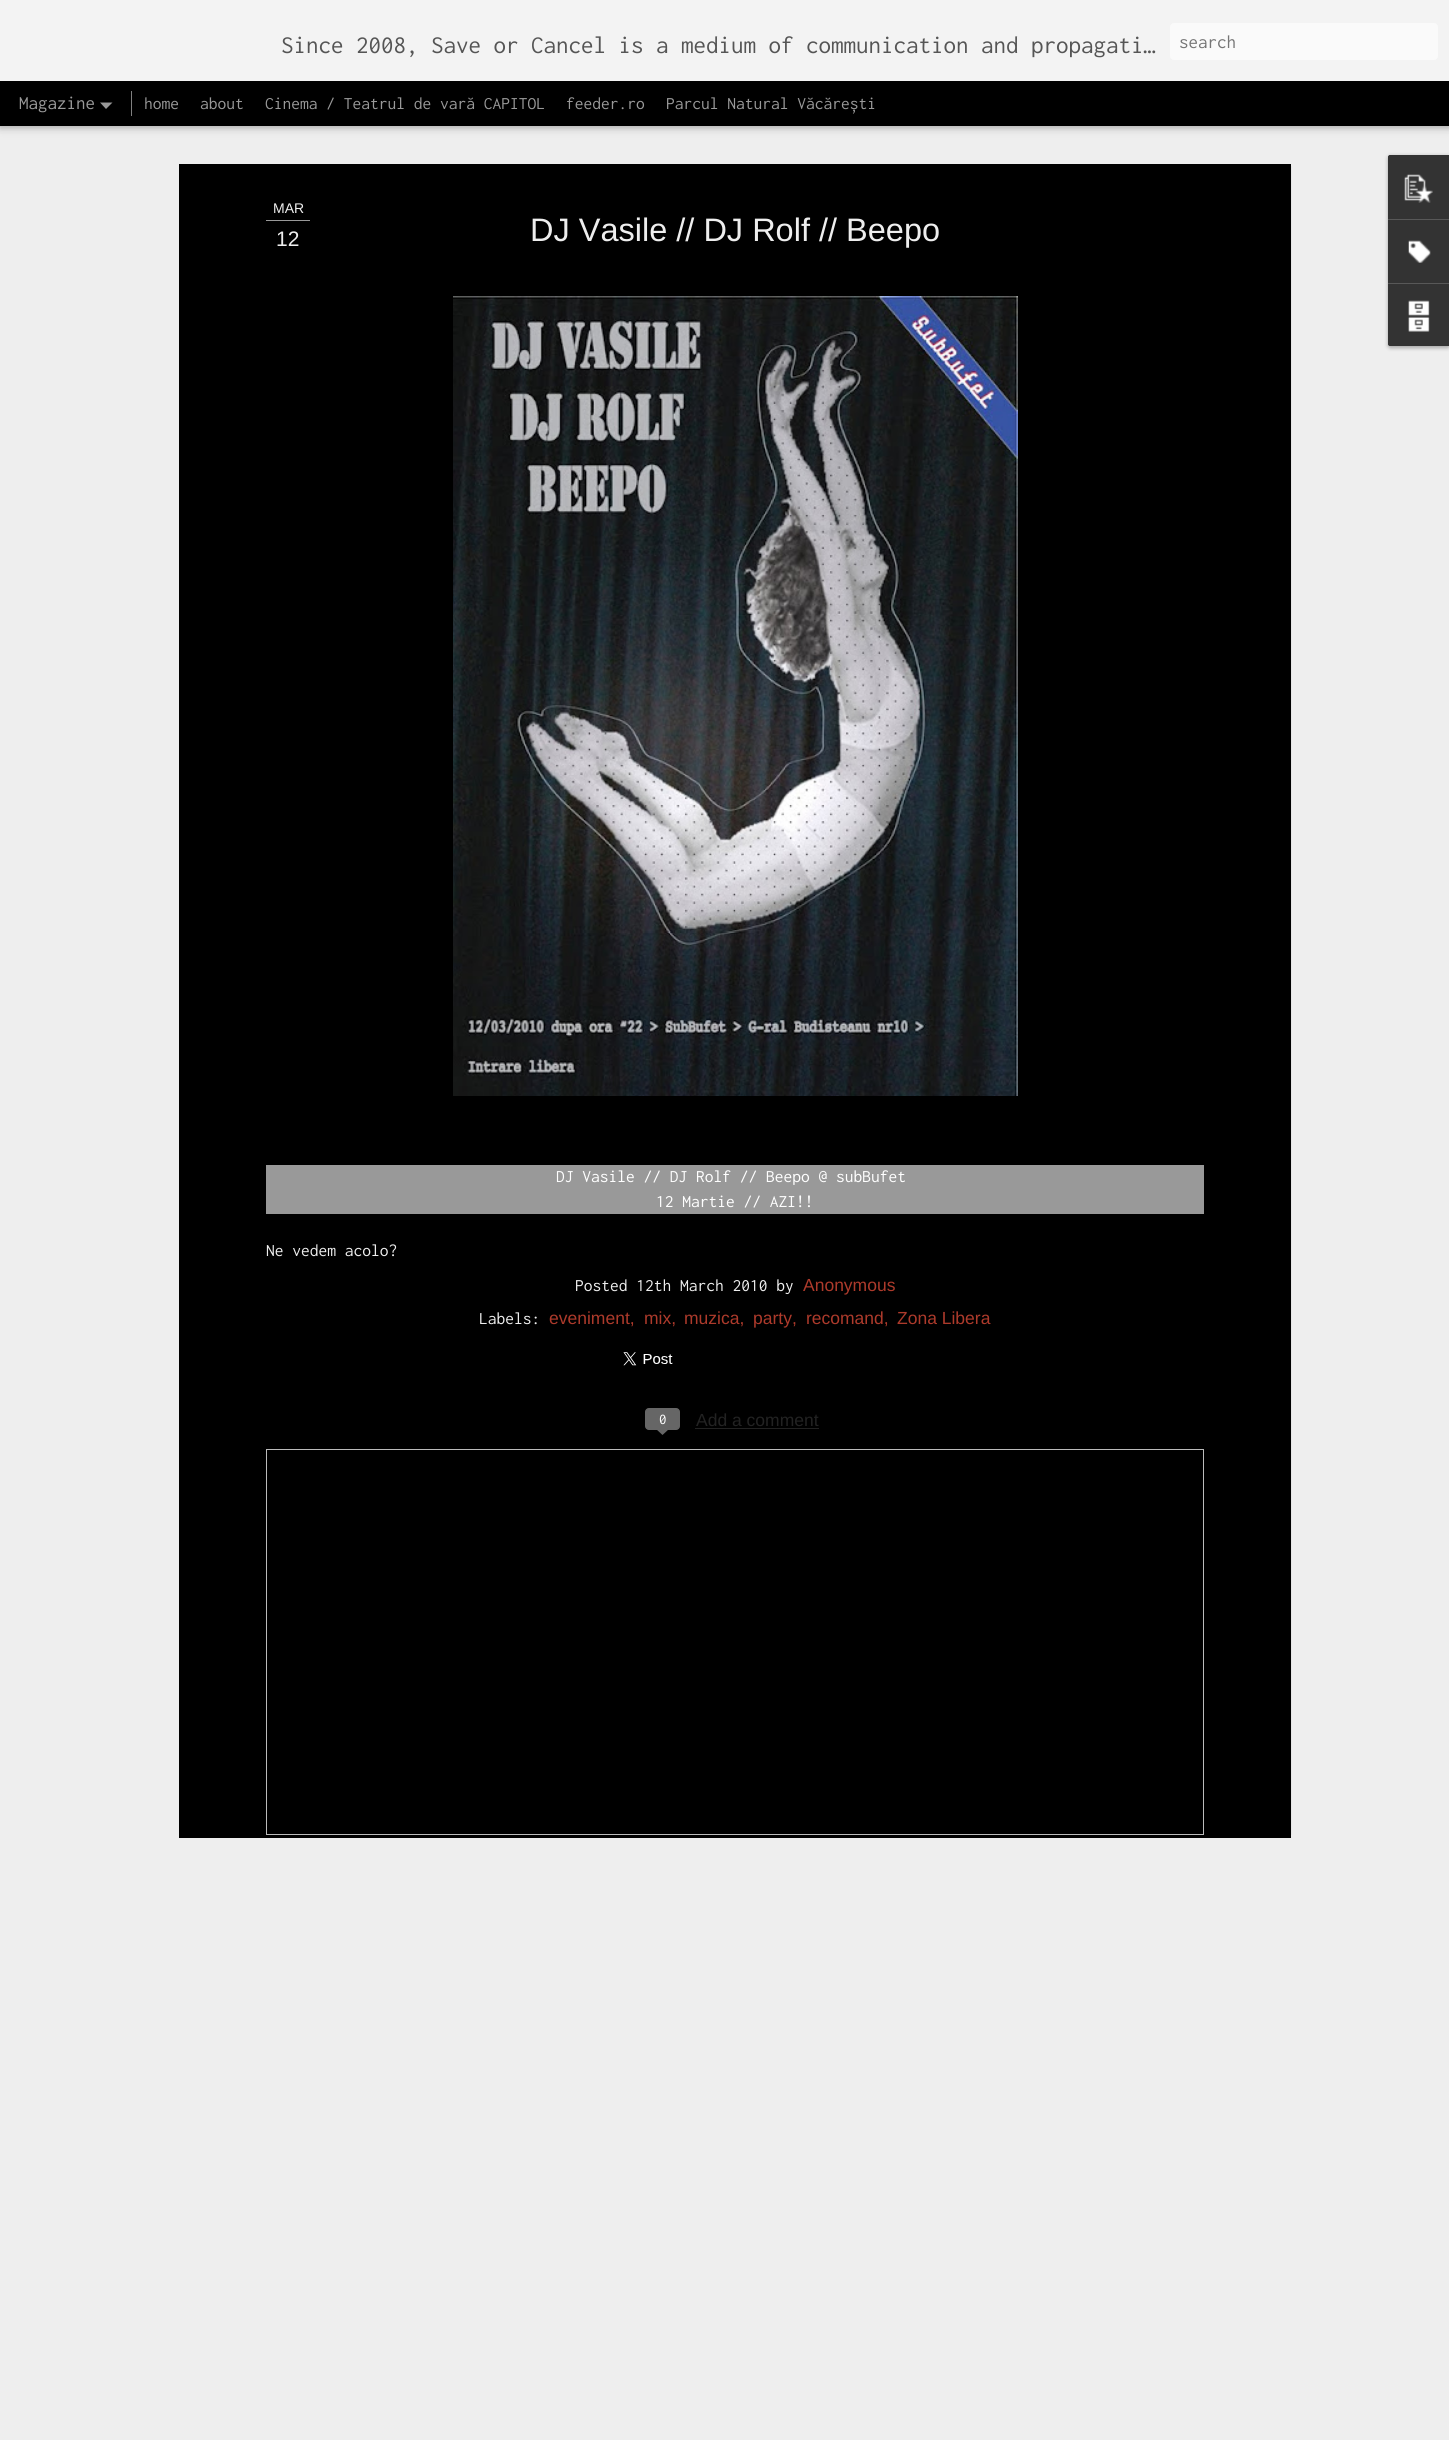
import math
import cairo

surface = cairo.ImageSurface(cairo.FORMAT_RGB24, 1449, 2440)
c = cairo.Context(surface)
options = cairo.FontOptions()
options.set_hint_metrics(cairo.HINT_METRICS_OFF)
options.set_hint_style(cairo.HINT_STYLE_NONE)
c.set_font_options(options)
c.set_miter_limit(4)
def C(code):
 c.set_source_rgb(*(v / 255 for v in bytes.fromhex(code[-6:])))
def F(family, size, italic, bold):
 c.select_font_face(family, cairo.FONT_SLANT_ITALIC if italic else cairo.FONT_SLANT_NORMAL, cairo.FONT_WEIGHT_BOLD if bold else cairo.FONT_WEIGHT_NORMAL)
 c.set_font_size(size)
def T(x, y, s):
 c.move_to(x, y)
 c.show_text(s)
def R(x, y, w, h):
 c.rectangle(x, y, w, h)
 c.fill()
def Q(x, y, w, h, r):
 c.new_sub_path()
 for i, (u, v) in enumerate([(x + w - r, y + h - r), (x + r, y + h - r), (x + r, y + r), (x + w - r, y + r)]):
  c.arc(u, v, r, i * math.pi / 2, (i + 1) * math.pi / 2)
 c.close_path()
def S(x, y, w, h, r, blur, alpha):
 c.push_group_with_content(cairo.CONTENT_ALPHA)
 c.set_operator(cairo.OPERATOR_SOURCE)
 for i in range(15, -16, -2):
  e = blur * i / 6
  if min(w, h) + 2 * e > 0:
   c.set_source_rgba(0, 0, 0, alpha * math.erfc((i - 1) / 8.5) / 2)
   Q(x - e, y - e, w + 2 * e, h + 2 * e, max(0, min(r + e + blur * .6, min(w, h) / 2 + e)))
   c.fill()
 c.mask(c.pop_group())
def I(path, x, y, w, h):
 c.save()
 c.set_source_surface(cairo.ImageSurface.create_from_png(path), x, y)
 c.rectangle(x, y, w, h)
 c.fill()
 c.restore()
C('000000')
c.paint()
C('eeeeee')
R(0,126,1449,2314)
C('000000')
S(0,81,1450,44,0,5,.5)
C('f3f3f3')
R(0,0,1449,81)
F('Inconsolata',25,0,0)
C('555555')
T(281,53,'Since 2008, Save or Cancel is a medium of communication and propagati…')
C('fafafa')
Q(1170,23,268,37,4)
c.fill()
F('Inconsolata',19,0,0)
C('757575')
T(1179,48,'search')
C('999999')
T(19,109,'Magazine')
c.new_path()
c.move_to(100,102.5)
c.line_to(112.5,102.5)
c.line_to(106,109)
c.close_path()
c.fill()
C('808080')
R(131,91,1,25)
F('Inconsolata',17.5,0,0)
C('999999')
T(144,109,'home')
T(200,109,'about')
T(265,109,'Cinema / Teatrul de vară CAPITOL')
T(566,109,'feeder.ro')
T(666,109,'Parcul Natural Văcărești')
C('000000')
R(179,164,1112,1674)
I('1.png',1291,166,1,1669)
C('999999')
R(266,220,44,1)
F('Liberation Sans',14,0,0)
C('eeeeee')
T(273,213,'MAR')
F('Liberation Sans',21,0,0)
T(276,246,'12')
F('Liberation Sans',32.5,0,0)
T(530,241,'DJ Vasile // DJ Rolf // Beepo')
I('2.png',453,296,565,800)
C('999999')
R(266,1165,938,49)
F('Inconsolata',17.5,0,0)
C('ffffff')
T(556,1182,'DJ Vasile // DJ Rolf // Beepo @ subBufet')
T(656,1207,'12 Martie // AZI!!')
C('eeeeee')
T(266,1256,'Ne vedem acolo?')
T(575,1291,'Posted 12th March 2010 by')
F('Liberation Sans',17.5,0,0)
C('ad3a2b')
T(803,1291,'Anonymous')
F('Inconsolata',17.5,0,0)
C('eeeeee')
T(479,1324,'Labels:')
F('Liberation Sans',17.5,0,0)
C('ad3a2b')
T(549,1324,'eveniment,')
T(644,1324,'mix,')
T(684,1324,'muzica,')
T(753,1324,'party,')
T(806,1324,'recomand,')
T(897,1324,'Zona Libera')
I('3.png',623,1352,50,14)
C('666666')
Q(645.5,1408.5,34,21,3.5)
c.fill_preserve()
c.set_line_width(1)
c.stroke()
F('Inconsolata',15,0,0)
C('ffffff')
T(659,1424,'0')
C('666666')
c.new_path()
c.move_to(656,1429)
c.line_to(669,1429)
c.line_to(662.5,1435)
c.close_path()
c.fill()
F('Liberation Sans',17.5,0,0)
C('222222')
T(696,1426,'Add a comment')
R(695,1428,124,1)
c.rectangle(266.5,1449.5,937,385)
C('bbbbbb')
c.stroke()
C('000000')
S(1388,156,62,192,2.5,2,.3)
C('333333')
c.new_path()
c.move_to(1390.5,155)
c.line_to(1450,155)
c.line_to(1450,346)
c.line_to(1390.5,346)
c.curve_to(1389,346,1388,345,1388,343.5)
c.line_to(1388,157.5)
c.curve_to(1388,156,1389,155,1390.5,155)
c.close_path()
c.fill()
c.new_path()
c.move_to(1390.5,155)
c.line_to(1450,155)
c.line_to(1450,219)
c.line_to(1388,219)
c.line_to(1388,157.5)
c.curve_to(1388,156,1389,155,1390.5,155)
c.close_path()
c.fill()
I('4.png',1404,174,29,29)
C('585858')
R(1388,219,61,1)
I('5.png',1408,240,23,23)
C('333333')
c.new_path()
c.move_to(1388,283)
c.line_to(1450,283)
c.line_to(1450,346)
c.line_to(1390.5,346)
c.curve_to(1389,346,1388,345,1388,343.5)
c.close_path()
c.fill()
C('585858')
R(1388,283,61,1)
I('6.png',1408,300,22,32)
surface.write_to_png('o.png')
